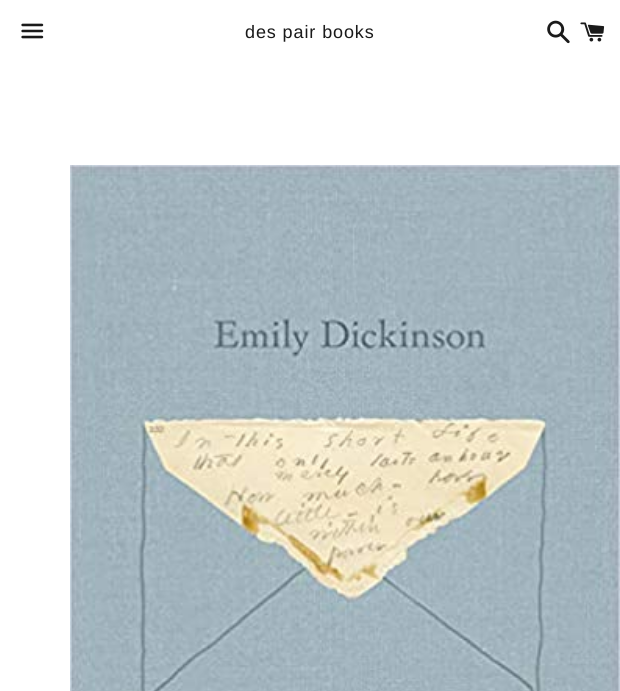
import math
import cairo

surface = cairo.ImageSurface(cairo.FORMAT_RGB24, 620, 691)
c = cairo.Context(surface)
options = cairo.FontOptions()
options.set_hint_metrics(cairo.HINT_METRICS_OFF)
options.set_hint_style(cairo.HINT_STYLE_NONE)
c.set_font_options(options)
c.set_miter_limit(4)
def C(code):
 c.set_source_rgb(*(v / 255 for v in bytes.fromhex(code[-6:])))
def F(family, size, italic, bold):
 c.select_font_face(family, cairo.FONT_SLANT_ITALIC if italic else cairo.FONT_SLANT_NORMAL, cairo.FONT_WEIGHT_BOLD if bold else cairo.FONT_WEIGHT_NORMAL)
 c.set_font_size(size)
def L(x, y, s, letter, word):
 c.move_to(x, y)
 for ch in s:
  c.show_text(ch)
  c.rel_move_to(letter + word * (ch == ' '), 0)
def I(path, x, y, w, h):
 c.save()
 c.set_source_surface(cairo.ImageSurface.create_from_png(path), x, y)
 c.rectangle(x, y, w, h)
 c.fill()
 c.restore()
C('ffffff')
c.paint()
I('1.png',21,23,23,16)
F('Liberation Sans',18,0,0)
C('1a1a1a')
L(245,38,'des pair books',.9,0)
I('2.png',547,20,23,24)
I('3.png',580,22,25,20)
I('4.png',70,165,550,526)
surface.write_to_png('o.png')
